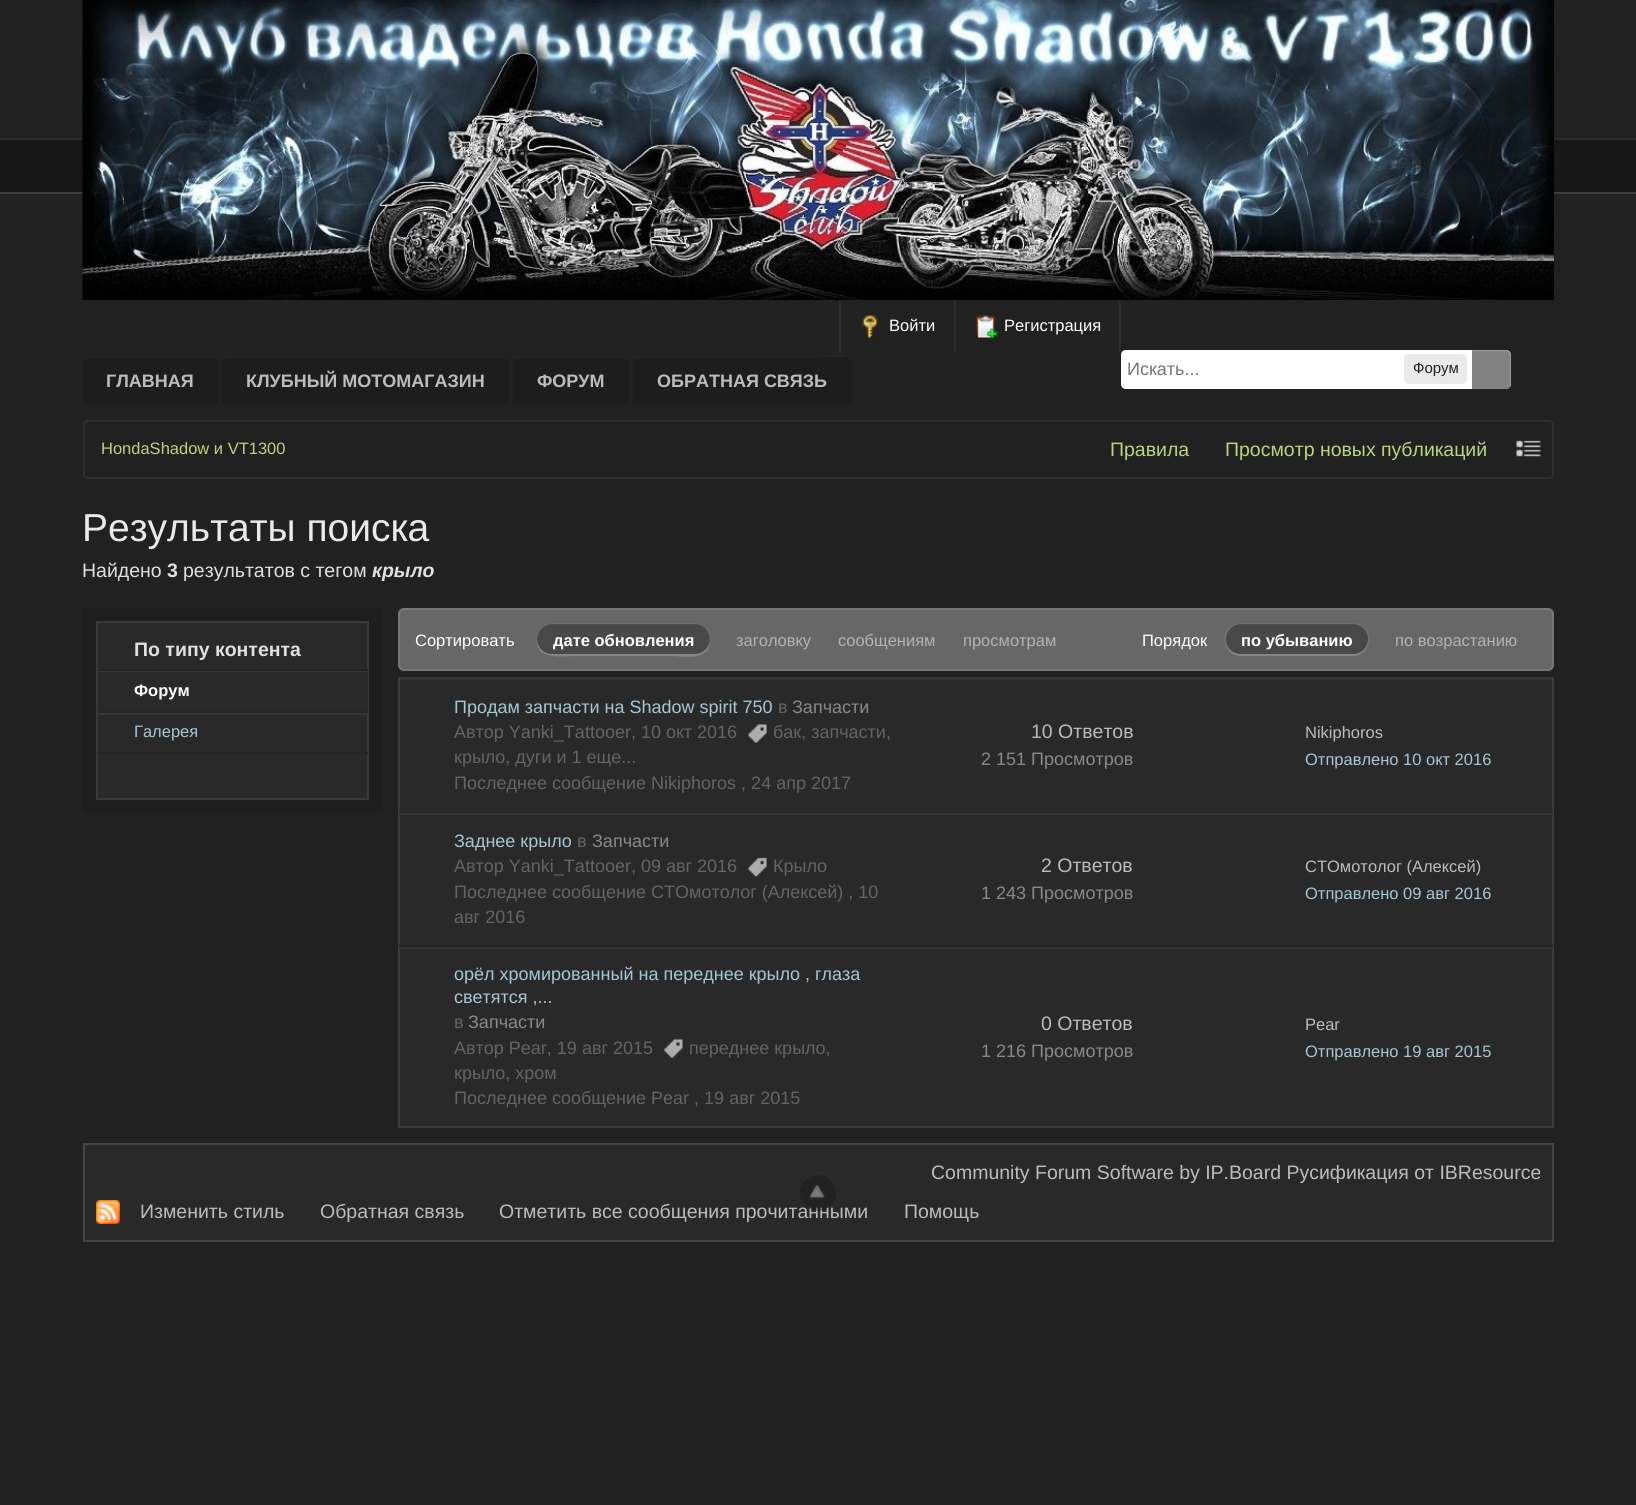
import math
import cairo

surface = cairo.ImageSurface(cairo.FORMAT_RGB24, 1636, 1505)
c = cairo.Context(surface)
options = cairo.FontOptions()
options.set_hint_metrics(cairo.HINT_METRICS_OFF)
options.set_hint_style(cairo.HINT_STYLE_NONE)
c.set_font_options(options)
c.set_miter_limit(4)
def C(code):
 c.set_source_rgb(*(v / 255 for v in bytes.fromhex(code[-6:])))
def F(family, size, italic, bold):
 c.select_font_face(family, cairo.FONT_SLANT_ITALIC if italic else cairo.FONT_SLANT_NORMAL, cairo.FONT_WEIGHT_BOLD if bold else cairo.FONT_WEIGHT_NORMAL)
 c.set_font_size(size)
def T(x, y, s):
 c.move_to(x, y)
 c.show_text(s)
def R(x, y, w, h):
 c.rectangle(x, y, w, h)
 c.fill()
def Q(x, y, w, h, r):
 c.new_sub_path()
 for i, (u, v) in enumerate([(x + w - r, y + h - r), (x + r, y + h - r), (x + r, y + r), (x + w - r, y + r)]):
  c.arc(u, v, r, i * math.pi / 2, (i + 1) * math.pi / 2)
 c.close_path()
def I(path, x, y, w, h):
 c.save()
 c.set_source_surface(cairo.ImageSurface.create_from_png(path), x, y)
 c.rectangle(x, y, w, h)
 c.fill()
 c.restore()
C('212121')
c.paint()
C('171717')
R(0,140,1636,52)
C('2b2b2b')
R(0,138,1636,2)
C('3e3e3e')
R(0,192,1636,2)
C('2b2b2b')
R(839,300,2,53)
R(954,300,2,53)
I('1.png',862,315,16,24)
F('Liberation Sans',16.5,0,0)
C('ffffff')
T(889,331,'Войти')
C('2b2b2b')
R(1119,300,2,53)
I('2.png',975,315,23,24)
C('ffffff')
T(1004,331,'Регистрация')
C('1d1d1d')
c.new_path()
c.move_to(88,357)
c.line_to(213,357)
c.curve_to(216,357,218,359,218,362)
c.line_to(218,405)
c.line_to(83,405)
c.line_to(83,362)
c.curve_to(83,359,85,357,88,357)
c.close_path()
c.fill()
C('252525')
c.new_path()
c.move_to(87,357)
c.line_to(84,358)
c.line_to(85,359)
c.line_to(86,358)
c.line_to(213,358)
c.line_to(215,359)
c.line_to(216,358)
c.line_to(213,357)
c.close_path()
c.fill()
F('Liberation Sans',18,0,1)
C('bcbcbc')
T(106,387,'ГЛАВНАЯ')
C('1d1d1d')
c.new_path()
c.move_to(227,357)
c.line_to(504,357)
c.curve_to(507,357,509,359,509,362)
c.line_to(509,405)
c.line_to(222,405)
c.line_to(222,362)
c.curve_to(222,359,224,357,227,357)
c.close_path()
c.fill()
C('252525')
c.new_path()
c.move_to(226,357)
c.line_to(223,358)
c.line_to(225,360)
c.curve_to(225,359,225,358,226,358)
c.line_to(504,358)
c.curve_to(505,358,506,358,506,359)
c.line_to(507,359)
c.curve_to(506,358,505,357,504,357)
c.close_path()
c.fill()
C('bcbcbc')
T(246,387,'КЛУБНЫЙ МОТОМАГАЗИН')
C('1d1d1d')
c.new_path()
c.move_to(518,357)
c.line_to(624,357)
c.curve_to(627,357,629,359,629,362)
c.line_to(629,405)
c.line_to(513,405)
c.line_to(513,362)
c.curve_to(513,359,515,357,518,357)
c.close_path()
c.fill()
C('252525')
c.new_path()
c.move_to(518,357)
c.curve_to(516,357,515,358,514,358)
c.line_to(515,359)
c.line_to(518,358)
c.line_to(624,358)
c.line_to(626,359)
c.line_to(627,359)
c.curve_to(626,358,625,357,624,357)
c.close_path()
c.fill()
C('bcbcbc')
T(537,387,'ФОРУМ')
C('1d1d1d')
c.new_path()
c.move_to(638,357)
c.line_to(847,357)
c.curve_to(850,357,852,359,852,362)
c.line_to(852,405)
c.line_to(633,405)
c.line_to(633,362)
c.curve_to(633,359,635,357,638,357)
c.close_path()
c.fill()
C('252525')
c.new_path()
c.move_to(638,357)
c.curve_to(636,357,635,358,634,358)
c.line_to(635,359)
c.line_to(638,358)
c.line_to(813,358)
c.curve_to(825,358,842,349,849,359)
c.line_to(849,360)
c.line_to(851,358)
c.line_to(848,357)
c.close_path()
c.fill()
C('bcbcbc')
T(657,387,'ОБРАТНАЯ СВЯЗЬ')
I('3.png',82,0,1472,300)
C('ffffff')
c.new_path()
c.move_to(1126,350)
c.line_to(1505,350)
c.curve_to(1508.5,350,1511,352.5,1511,356)
c.line_to(1511,383)
c.curve_to(1511,386.5,1508.5,389,1505,389)
c.line_to(1126,389)
c.curve_to(1123,389,1121,387,1121,384)
c.line_to(1121,355)
c.curve_to(1121,352,1123,350,1126,350)
c.close_path()
c.fill()
F('Liberation Sans',18,0,0)
C('757575')
T(1127,375,'Искать...')
C('eaeaea')
Q(1404,354,63,30,5)
c.fill()
F('Liberation Sans',15,0,0)
C('222222')
T(1413,373,'Форум')
C('828282')
c.new_path()
c.move_to(1472,350)
c.line_to(1506,350)
c.curve_to(1509,350,1511,352,1511,355)
c.line_to(1511,384)
c.curve_to(1511,387,1509,389,1506,389)
c.line_to(1472,389)
c.close_path()
c.fill()
c.set_source_rgba(1,1,1,0.2)
c.new_path()
c.move_to(1472,351)
c.line_to(1506,351)
c.curve_to(1508,351,1510,353,1510,356)
c.line_to(1510,386)
c.line_to(1509.5,387.5)
c.curve_to(1510.5,386.5,1511,385.5,1511,384)
c.line_to(1511,355)
c.curve_to(1511,352,1509,350,1506,350)
c.line_to(1472,350)
c.close_path()
c.fill()
Q(84,421,1469,57,4)
C('2d2d2d')
c.stroke()
F('Liberation Sans',16.5,0,0)
C('bcd380')
T(101,454,'HondaShadow и VT1300')
F('Liberation Sans',19.5,0,0)
T(1110,456,'Правила')
T(1225,456,'Просмотр новых публикаций')
I('4.png',1516,440,25,17)
F('Liberation Sans',39,0,0)
C('eaeaea')
T(82,541,'Результаты поиска')
F('Liberation Sans',19.5,0,0)
C('e0e0e0')
T(82,577,'Найдено')
F('Liberation Sans',19.5,0,1)
T(167,577,'3')
F('Liberation Sans',19.5,0,0)
T(183,577,'результатов с тегом')
F('Liberation Sans',19.5,1,1)
T(372,577,'крыло')
C('1e1e1e')
R(83,608,300,205)
C('292929')
c.rectangle(97,622,271,177)
c.fill_preserve()
C('393939')
c.stroke()
F('Liberation Sans',19.5,0,1)
C('e0e0e0')
T(134,656,'По типу контента')
C('252525')
R(98,669,270,2)
C('353535')
R(98,671,270,1)
C('252525')
R(98,711,270,2)
C('282828')
R(367,672,1,39)
F('Liberation Sans',16.5,0,1)
C('ffffff')
T(134,696,'Форум')
C('353535')
R(98,713,270,2)
C('252525')
R(98,752,270,2)
F('Liberation Sans',16.5,0,0)
C('a6c7d7')
T(134,737,'Галерея')
C('676767')
Q(398,608,1156,63,6)
c.fill()
Q(399,609,1154,61,5)
c.set_source_rgba(1,1,1,0.1)
c.stroke()
C('ffffff')
T(415,646,'Сортировать')
Q(537,624,173,31,15.5)
C('6f6f6f')
c.stroke()
c.set_source_rgba(1,1,1,0.16)
c.new_path()
c.move_to(537,640)
c.curve_to(536,661,564,656,576,656)
c.line_to(671,656)
c.curve_to(682,656,703,661,709,647)
c.curve_to(710,644,710,640,709,636)
c.line_to(710,639)
c.curve_to(710,647,703,654,694,654)
c.line_to(552,654)
c.curve_to(544,654,538,648,537,640)
c.close_path()
c.fill()
c.set_source_rgba(0,0,0,0.3)
Q(537,624,173,30,15)
c.fill()
F('Liberation Sans',16.5,0,1)
C('ffffff')
T(553,646,'дате обновления')
F('Liberation Sans',16.5,0,0)
C('b3b3b3')
T(736,646,'заголовку')
T(838,646,'сообщениям')
T(963,646,'просмотрам')
C('ffffff')
T(1142,646,'Порядок')
Q(1225,624,144,31,15.5)
C('6f6f6f')
c.stroke()
c.set_source_rgba(1,1,1,0.16)
c.new_path()
c.move_to(1226,644)
c.curve_to(1227,651,1234,656,1241,656)
c.line_to(1353,656)
c.curve_to(1361,656,1368,649,1368,641)
c.line_to(1368,640)
c.curve_to(1367,648,1361,654,1353,654)
c.line_to(1240,654)
c.curve_to(1234,654,1228,650,1226,644)
c.close_path()
c.fill()
c.set_source_rgba(0,0,0,0.3)
Q(1226,624,142,30,15)
c.fill()
F('Liberation Sans',16.5,0,1)
C('ffffff')
T(1241,646,'по убыванию')
F('Liberation Sans',16.5,0,0)
C('b3b3b3')
T(1395,646,'по возрастанию')
C('292929')
R(400,680,1152,446)
c.rectangle(399,678,1154,449)
C('393939')
c.stroke()
C('353535')
R(399,678,1154,2)
C('252525')
R(399,812,1154,1)
F('Liberation Sans',18,0,0)
C('a6c7d7')
T(454,713,'Продам запчасти на Shadow spirit 750')
C('646464')
T(778,713,'в')
C('898989')
T(792,713,'Запчасти')
C('646464')
T(454,738,'Автор Yanki_Tattooer, 10 окт 2016')
I('5.png',748,724,19,19)
T(773,738,'бак, запчасти,')
T(454,763,'крыло, дуги и 1 еще...')
T(454,789,'Последнее сообщение Nikiphoros , 24 апр 2017')
F('Liberation Sans',19.5,0,0)
C('bcbcbc')
T(1031,738,'10 Ответов')
F('Liberation Sans',18,0,0)
C('898989')
T(981,765,'2 151 Просмотров')
F('Liberation Sans',16.5,0,0)
C('bcbcbc')
T(1305,738,'Nikiphoros')
C('a6c7d7')
T(1305,765,'Отправлено 10 окт 2016')
C('353535')
R(399,813,1154,2)
C('252525')
R(399,945,1154,2)
F('Liberation Sans',18,0,0)
C('a6c7d7')
T(454,847,'Заднее крыло')
C('646464')
T(577,847,'в')
C('898989')
T(592,847,'Запчасти')
C('646464')
T(454,872,'Автор Yanki_Tattooer, 09 авг 2016')
I('6.png',748,857,19,20)
T(773,872,'Крыло')
T(454,898,'Последнее сообщение СТОмотолог (Алексей) , 10')
T(454,923,'авг 2016')
F('Liberation Sans',19.5,0,0)
C('bcbcbc')
T(1041,872,'2 Ответов')
F('Liberation Sans',18,0,0)
C('898989')
T(981,899,'1 243 Просмотров')
F('Liberation Sans',16.5,0,0)
C('bcbcbc')
T(1305,872,'СТОмотолог (Алексей)')
C('a6c7d7')
T(1305,899,'Отправлено 09 авг 2016')
C('353535')
R(399,947,1154,2)
F('Liberation Sans',18,0,0)
C('a6c7d7')
T(454,980,'орёл хромированный на переднее крыло , глаза')
T(454,1003,'светятся ,...')
C('646464')
T(454,1028,'в')
C('898989')
T(468,1028,'Запчасти')
C('646464')
T(454,1054,'Автор Pear, 19 авг 2015')
I('7.png',664,1039,19,19)
T(689,1054,'переднее крыло,')
T(454,1079,'крыло, хром')
T(454,1104,'Последнее сообщение Pear , 19 авг 2015')
F('Liberation Sans',19.5,0,0)
C('bcbcbc')
T(1041,1030,'0 Ответов')
F('Liberation Sans',18,0,0)
C('898989')
T(981,1057,'1 216 Просмотров')
F('Liberation Sans',16.5,0,0)
C('bcbcbc')
T(1305,1030,'Pear')
C('a6c7d7')
T(1305,1057,'Отправлено 19 авг 2015')
C('292929')
c.rectangle(84,1144,1469,97)
c.fill_preserve()
C('454545')
c.stroke()
F('Liberation Sans',19.5,0,0)
C('bcbcbc')
T(499,1218,'Отметить все сообщения прочитанными')
c.set_source_rgba(0.082,0.082,0.082,0.4)
c.new_path()
c.arc(818,1193,18,0,2 * math.pi)
c.fill()
I('8.png',809,1184,16,15)
C('bcbcbc')
T(931,1179,'Community Forum Software by IP.Board Русификация от IBResource')
I('9.png',96,1200,24,24)
T(140,1218,'Изменить стиль')
T(320,1218,'Обратная связь')
T(904,1218,'Помощь')
surface.write_to_png('o.png')
